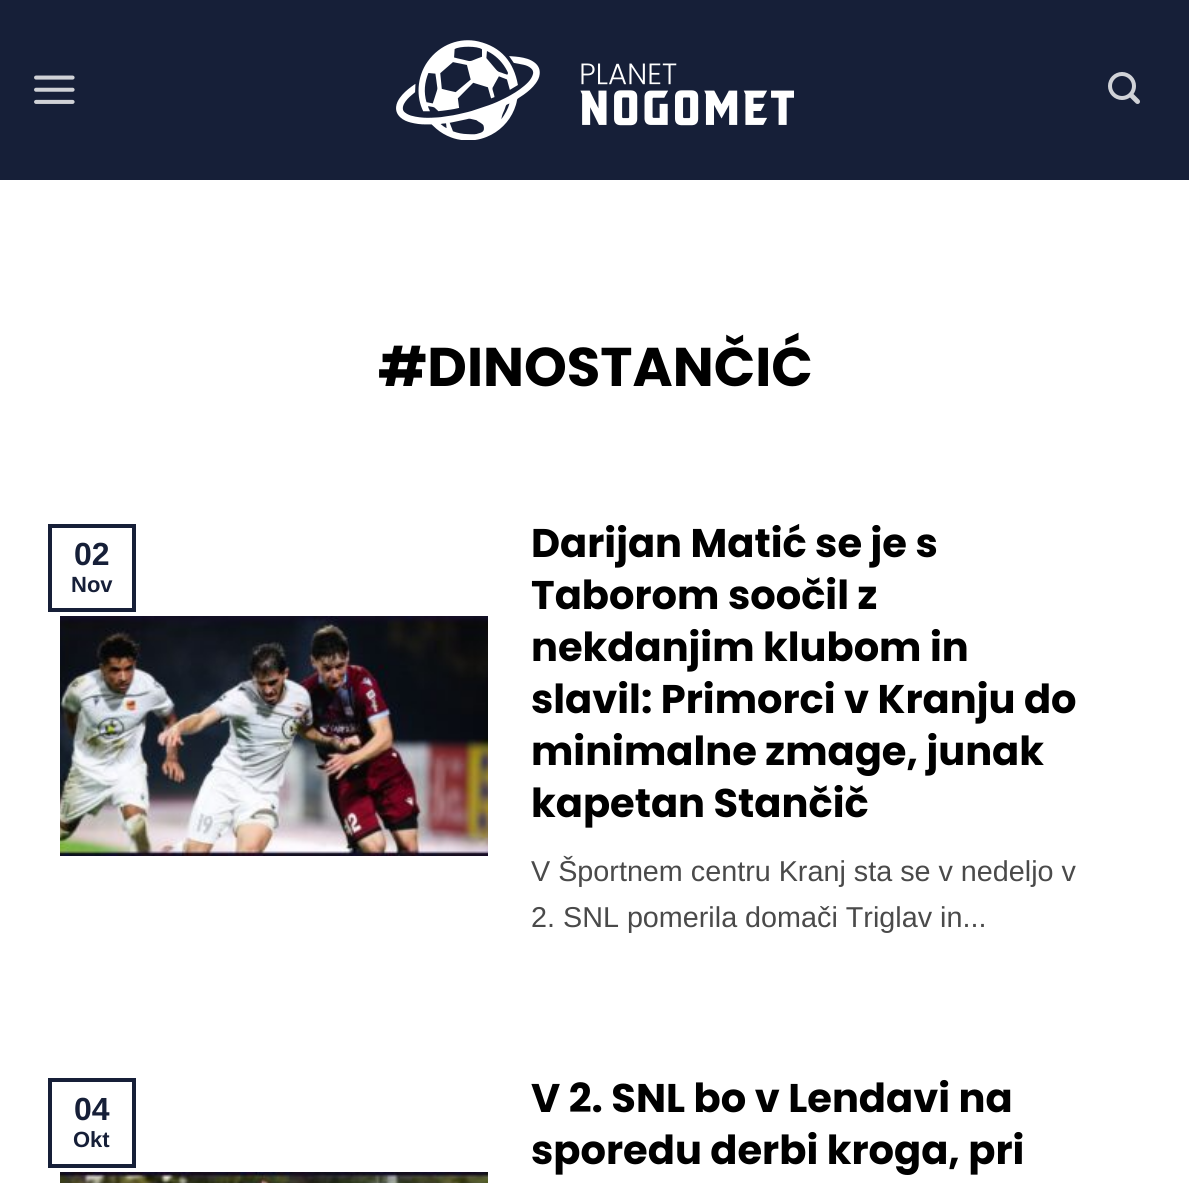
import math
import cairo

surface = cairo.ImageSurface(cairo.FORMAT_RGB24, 1189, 1183)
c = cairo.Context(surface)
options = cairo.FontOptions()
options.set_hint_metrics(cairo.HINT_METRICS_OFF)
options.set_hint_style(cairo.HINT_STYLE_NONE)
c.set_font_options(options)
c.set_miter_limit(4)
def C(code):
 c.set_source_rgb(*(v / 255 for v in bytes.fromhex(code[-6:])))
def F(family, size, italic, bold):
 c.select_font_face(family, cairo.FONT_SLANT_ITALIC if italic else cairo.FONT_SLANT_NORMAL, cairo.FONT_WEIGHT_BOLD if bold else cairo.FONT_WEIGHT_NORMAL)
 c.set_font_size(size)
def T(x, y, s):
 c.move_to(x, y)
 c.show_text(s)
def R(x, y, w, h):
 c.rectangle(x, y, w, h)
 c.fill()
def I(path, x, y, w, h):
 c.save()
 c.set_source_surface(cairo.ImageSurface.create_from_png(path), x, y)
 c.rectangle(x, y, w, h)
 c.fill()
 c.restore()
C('ffffff')
c.paint()
C('161f38')
R(0,0,1189,180)
I('1.png',34,75,41,29)
I('2.png',396,40,398,100)
I('3.png',1108,72,32,32)
F('Poppins',54.5,0,1)
C('000000')
T(378,386,'#DINOSTANČIĆ')
c.rectangle(50,526,84,84)
C('161f38')
c.set_line_width(4)
c.stroke()
F('Liberation Sans',32,0,1)
T(74,565,'02')
F('Liberation Sans',22,0,1)
T(71,592,'Nov')
F('Poppins',40,0,1)
C('000000')
T(531,557,'Darijan Matić se je s')
T(531,609,'Taborom soočil z')
T(531,661,'nekdanjim klubom in')
T(531,713,'slavil: Primorci v Kranju do')
T(531,765,'minimalne zmage, junak')
T(531,817,'kapetan Stančič')
F('Liberation Sans',28.75,0,0)
C('4a4a4a')
T(531,881,'V Športnem centru Kranj sta se v nedeljo v')
T(531,927,'2. SNL pomerila domači Triglav in...')
I('4.png',60,616,428,240)
c.rectangle(50,1080,84,86)
C('161f38')
c.stroke()
F('Liberation Sans',32,0,1)
T(74,1120,'04')
F('Liberation Sans',22,0,1)
T(73,1147,'Okt')
F('Poppins',40,0,1)
C('000000')
T(531,1112,'V 2. SNL bo v Lendavi na')
T(531,1164,'sporedu derbi kroga, pri')
I('5.png',60,1172,428,11)
surface.write_to_png('o.png')
